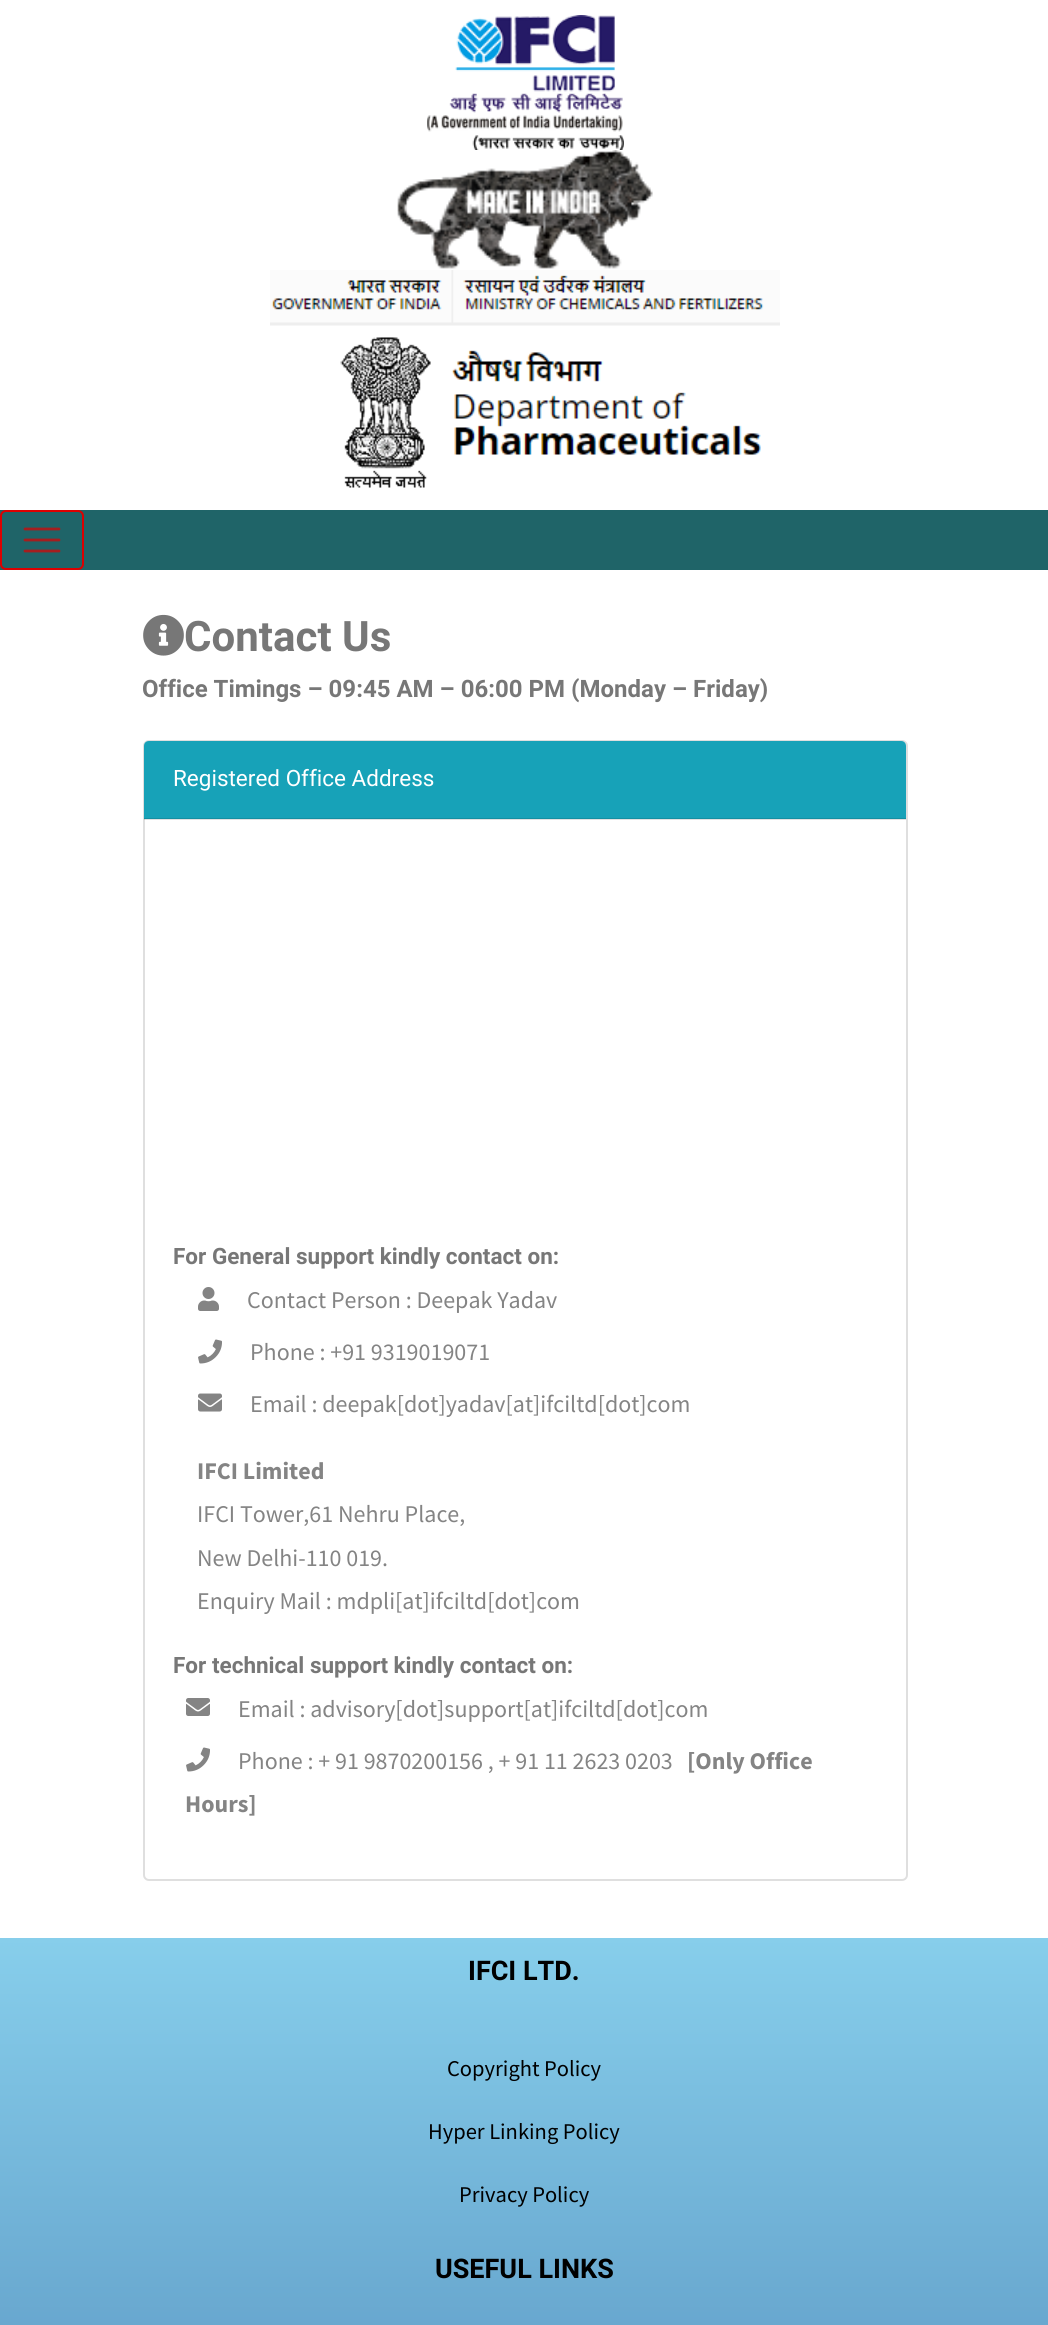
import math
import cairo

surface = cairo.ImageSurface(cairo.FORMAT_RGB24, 1048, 2325)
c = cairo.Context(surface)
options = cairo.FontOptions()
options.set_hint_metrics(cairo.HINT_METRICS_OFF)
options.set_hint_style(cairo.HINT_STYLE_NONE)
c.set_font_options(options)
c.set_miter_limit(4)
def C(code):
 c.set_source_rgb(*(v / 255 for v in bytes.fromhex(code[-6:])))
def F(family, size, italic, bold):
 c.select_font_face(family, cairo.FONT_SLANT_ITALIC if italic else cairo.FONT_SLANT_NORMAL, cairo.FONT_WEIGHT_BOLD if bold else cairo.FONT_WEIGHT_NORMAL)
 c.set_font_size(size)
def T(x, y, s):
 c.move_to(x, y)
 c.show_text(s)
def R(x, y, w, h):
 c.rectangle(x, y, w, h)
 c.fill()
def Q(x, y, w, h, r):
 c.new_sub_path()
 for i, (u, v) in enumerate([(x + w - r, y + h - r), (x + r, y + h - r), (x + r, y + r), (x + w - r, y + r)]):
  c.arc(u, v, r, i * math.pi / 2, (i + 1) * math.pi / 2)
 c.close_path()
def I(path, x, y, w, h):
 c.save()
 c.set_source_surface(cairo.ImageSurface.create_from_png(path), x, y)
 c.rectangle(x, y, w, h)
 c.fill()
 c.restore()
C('ffffff')
c.paint()
I('1.png',427,15,197,135)
I('2.png',397,150,256,119)
I('3.png',270,270,510,218)
C('1f6468')
R(0,510,1048,60)
Q(1,511,82,58,5)
C('dd0000')
c.stroke()
c.new_path()
c.move_to(25,529)
c.line_to(59,529)
c.move_to(25,540)
c.line_to(59,540)
c.move_to(25,551)
c.line_to(59,551)
C('a41e1f')
c.set_line_width(2.8)
c.set_line_cap(cairo.LINE_CAP_ROUND)
c.stroke()
I('4.png',143,614,41,42)
F('Roboto',42,0,1)
C('777777')
T(184,651,'Contact Us')
F('Roboto',24,0,1)
T(142,697,'Office Timings – 09:45 AM – 06:00 PM (Monday – Friday)')
Q(144,741,763,1139,5)
C('dfdfdf')
c.set_line_width(2)
c.set_line_cap(cairo.LINE_CAP_BUTT)
c.stroke()
C('17a2b8')
c.new_path()
c.move_to(149,741)
c.line_to(901,741)
c.curve_to(904,741,906,743,906,746)
c.line_to(906,819)
c.line_to(144,819)
c.line_to(144,746)
c.curve_to(144,743,146,741,149,741)
c.close_path()
c.fill()
c.set_source_rgba(0,0,0,0.12)
R(144,818,762,2)
F('Roboto',22.5,0,0)
C('ffffff')
T(173,786,'Registered Office Address')
F('Roboto',22.5,0,1)
C('777777')
T(173,1264,'For General support kindly contact on:')
I('5.png',198,1287,21,24)
F('Source Sans Pro',24,0,0)
C('848484')
T(247,1308,'Contact Person : Deepak Yadav')
I('6.png',198,1339,24,25)
T(250,1360,'Phone : +91 9319019071')
I('7.png',198,1393,24,19)
T(250,1412,'Email : deepak[dot]yadav[at]ifciltd[dot]com')
F('Source Sans Pro',24,0,1)
T(197,1479,'IFCI Limited')
F('Source Sans Pro',24,0,0)
T(197,1522,'IFCI Tower,61 Nehru Place,')
T(197,1566,'New Delhi-110 019.')
T(197,1609,'Enquiry Mail : mdpli[at]ifciltd[dot]com')
F('Roboto',22.5,0,1)
C('777777')
T(173,1673,'For technical support kindly contact on:')
I('8.png',186,1698,24,18)
F('Source Sans Pro',24,0,0)
C('848484')
T(238,1717,'Email : advisory[dot]support[at]ifciltd[dot]com')
I('6.png',186,1747,24,25)
T(238,1769,'Phone : + 91 9870200156 , + 91 11 2623 0203')
F('Source Sans Pro',24,0,1)
T(687,1769,'[Only Office')
T(185,1812,'Hours]')
gradient = cairo.LinearGradient(524,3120,524,1938)
gradient.add_color_stop_rgba(0,0.165,0.349,0.588,1)
gradient.add_color_stop_rgba(1,0.529,0.808,0.922,1)
c.set_source(gradient)
R(0,1938,1048,387)
F('Roboto',27,0,1)
C('000000')
T(468,1980,'IFCI LTD.')
F('Source Sans Pro',22.5,0,0)
T(447,2076,'Copyright Policy')
T(428,2139,'Hyper Linking Policy')
T(459,2202,'Privacy Policy')
F('Roboto',27,0,1)
T(435,2278,'USEFUL LINKS')
surface.write_to_png('o.png')
